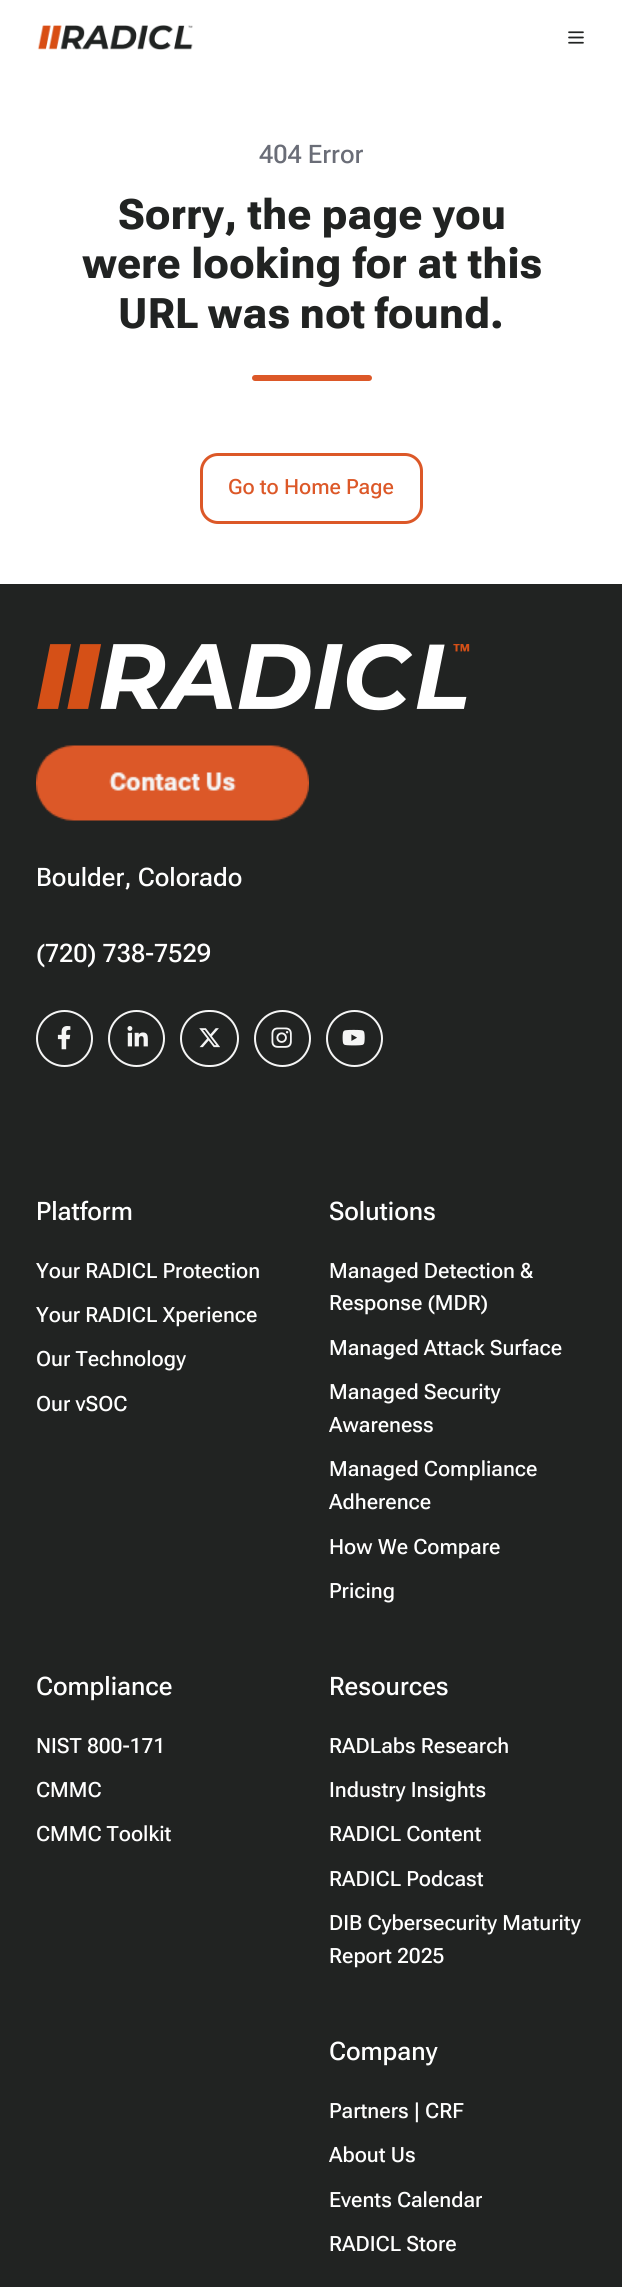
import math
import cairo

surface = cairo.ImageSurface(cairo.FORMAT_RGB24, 622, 2287)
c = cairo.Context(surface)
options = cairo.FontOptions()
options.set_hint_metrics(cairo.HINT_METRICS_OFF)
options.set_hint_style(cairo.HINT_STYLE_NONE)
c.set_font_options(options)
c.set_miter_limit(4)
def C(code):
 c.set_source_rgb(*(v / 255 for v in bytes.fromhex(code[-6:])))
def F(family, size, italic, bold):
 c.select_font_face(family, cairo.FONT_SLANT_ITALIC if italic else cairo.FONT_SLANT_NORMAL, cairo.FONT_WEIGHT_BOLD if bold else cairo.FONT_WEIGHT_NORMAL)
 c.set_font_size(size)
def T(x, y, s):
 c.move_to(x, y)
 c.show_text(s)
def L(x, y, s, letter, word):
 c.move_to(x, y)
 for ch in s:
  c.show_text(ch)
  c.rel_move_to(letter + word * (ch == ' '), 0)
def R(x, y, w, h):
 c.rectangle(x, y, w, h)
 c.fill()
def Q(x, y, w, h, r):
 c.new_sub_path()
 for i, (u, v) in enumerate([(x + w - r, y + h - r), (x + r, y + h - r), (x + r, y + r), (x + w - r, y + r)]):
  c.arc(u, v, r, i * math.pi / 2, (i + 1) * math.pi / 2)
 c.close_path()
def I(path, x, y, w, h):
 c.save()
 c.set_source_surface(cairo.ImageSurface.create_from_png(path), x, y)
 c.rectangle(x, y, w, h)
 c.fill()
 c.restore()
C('ffffff')
c.paint()
I('1.png',37,25,156,25)
I('2.png',568,31,16,13)
F('Roboto Flex Medium',25.5,0,0)
C('6a6d77')
T(259,163,'404 Error')
F('Roboto Flex ExtraBold',42,0,0)
C('212322')
T(118,229,'Sorry, the page you')
L(82,278,'were looking for at this',0,.5)
L(118,328,'URL was not found.',0,-1)
C('dc5828')
Q(252,375,120,6,3)
c.fill()
Q(201.5,454.5,220,68,16.5)
c.set_line_width(3)
c.stroke()
F('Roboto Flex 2 Medium',21,0,0)
T(228,494,'Go to Home Page')
C('212322')
R(0,584,622,1703)
I('3.png',37,644,433,67)
I('4.png',36,745,273,76)
F('Roboto Flex Medium',25.5,0,0)
C('ffffff')
T(36,886,'Boulder, Colorado')
T(36,962,'(720) 738-7529')
c.new_path()
c.arc(64.5,1038.5,27.5,0,2 * math.pi)
C('f5f5f5')
c.set_line_width(2)
c.stroke()
I('5.png',57,1026,14,24)
c.arc(136.5,1038.5,27.5,0,2 * math.pi)
c.stroke()
I('6.png',127,1026,21,21)
Q(181,1011,57,55,27.5)
c.stroke()
I('7.png',199,1028,21,20)
c.arc(282.5,1038.5,27.5,0,2 * math.pi)
c.stroke()
I('8.png',271,1027,21,21)
c.arc(354.5,1038.5,27.5,0,2 * math.pi)
c.stroke()
I('9.png',342,1029,23,17)
C('ffffff')
T(36,1220,'Platform')
F('Roboto Flex 2 Medium',21,0,0)
T(36,1278,'Your RADICL Protection')
T(36,1322,'Your RADICL Xperience')
T(36,1366,'Our Technology')
T(36,1411,'Our vSOC')
F('Roboto Flex Medium',25.5,0,0)
T(329,1220,'Solutions')
F('Roboto Flex 2 Medium',21,0,0)
T(329,1278,'Managed Detection &')
T(329,1310,'Response (MDR)')
T(329,1355,'Managed Attack Surface')
T(329,1399,'Managed Security')
T(329,1432,'Awareness')
T(329,1476,'Managed Compliance')
T(329,1509,'Adherence')
T(329,1554,'How We Compare')
T(329,1598,'Pricing')
F('Roboto Flex Medium',25.5,0,0)
T(36,1695,'Compliance')
F('Roboto Flex 2 Medium',21,0,0)
T(36,1753,'NIST 800-171')
T(36,1797,'CMMC')
T(36,1841,'CMMC Toolkit')
F('Roboto Flex Medium',25.5,0,0)
T(329,1695,'Resources')
F('Roboto Flex 2 Medium',21,0,0)
T(329,1753,'RADLabs Research')
T(329,1797,'Industry Insights')
T(329,1841,'RADICL Content')
T(329,1886,'RADICL Podcast')
T(329,1930,'DIB Cybersecurity Maturity')
T(329,1963,'Report 2025')
F('Roboto Flex Medium',25.5,0,0)
T(329,2060,'Company')
F('Roboto Flex 2 Medium',21,0,0)
T(329,2118,'Partners | CRF')
T(329,2162,'About Us')
T(329,2207,'Events Calendar')
T(329,2251,'RADICL Store')
surface.write_to_png('o.png')
